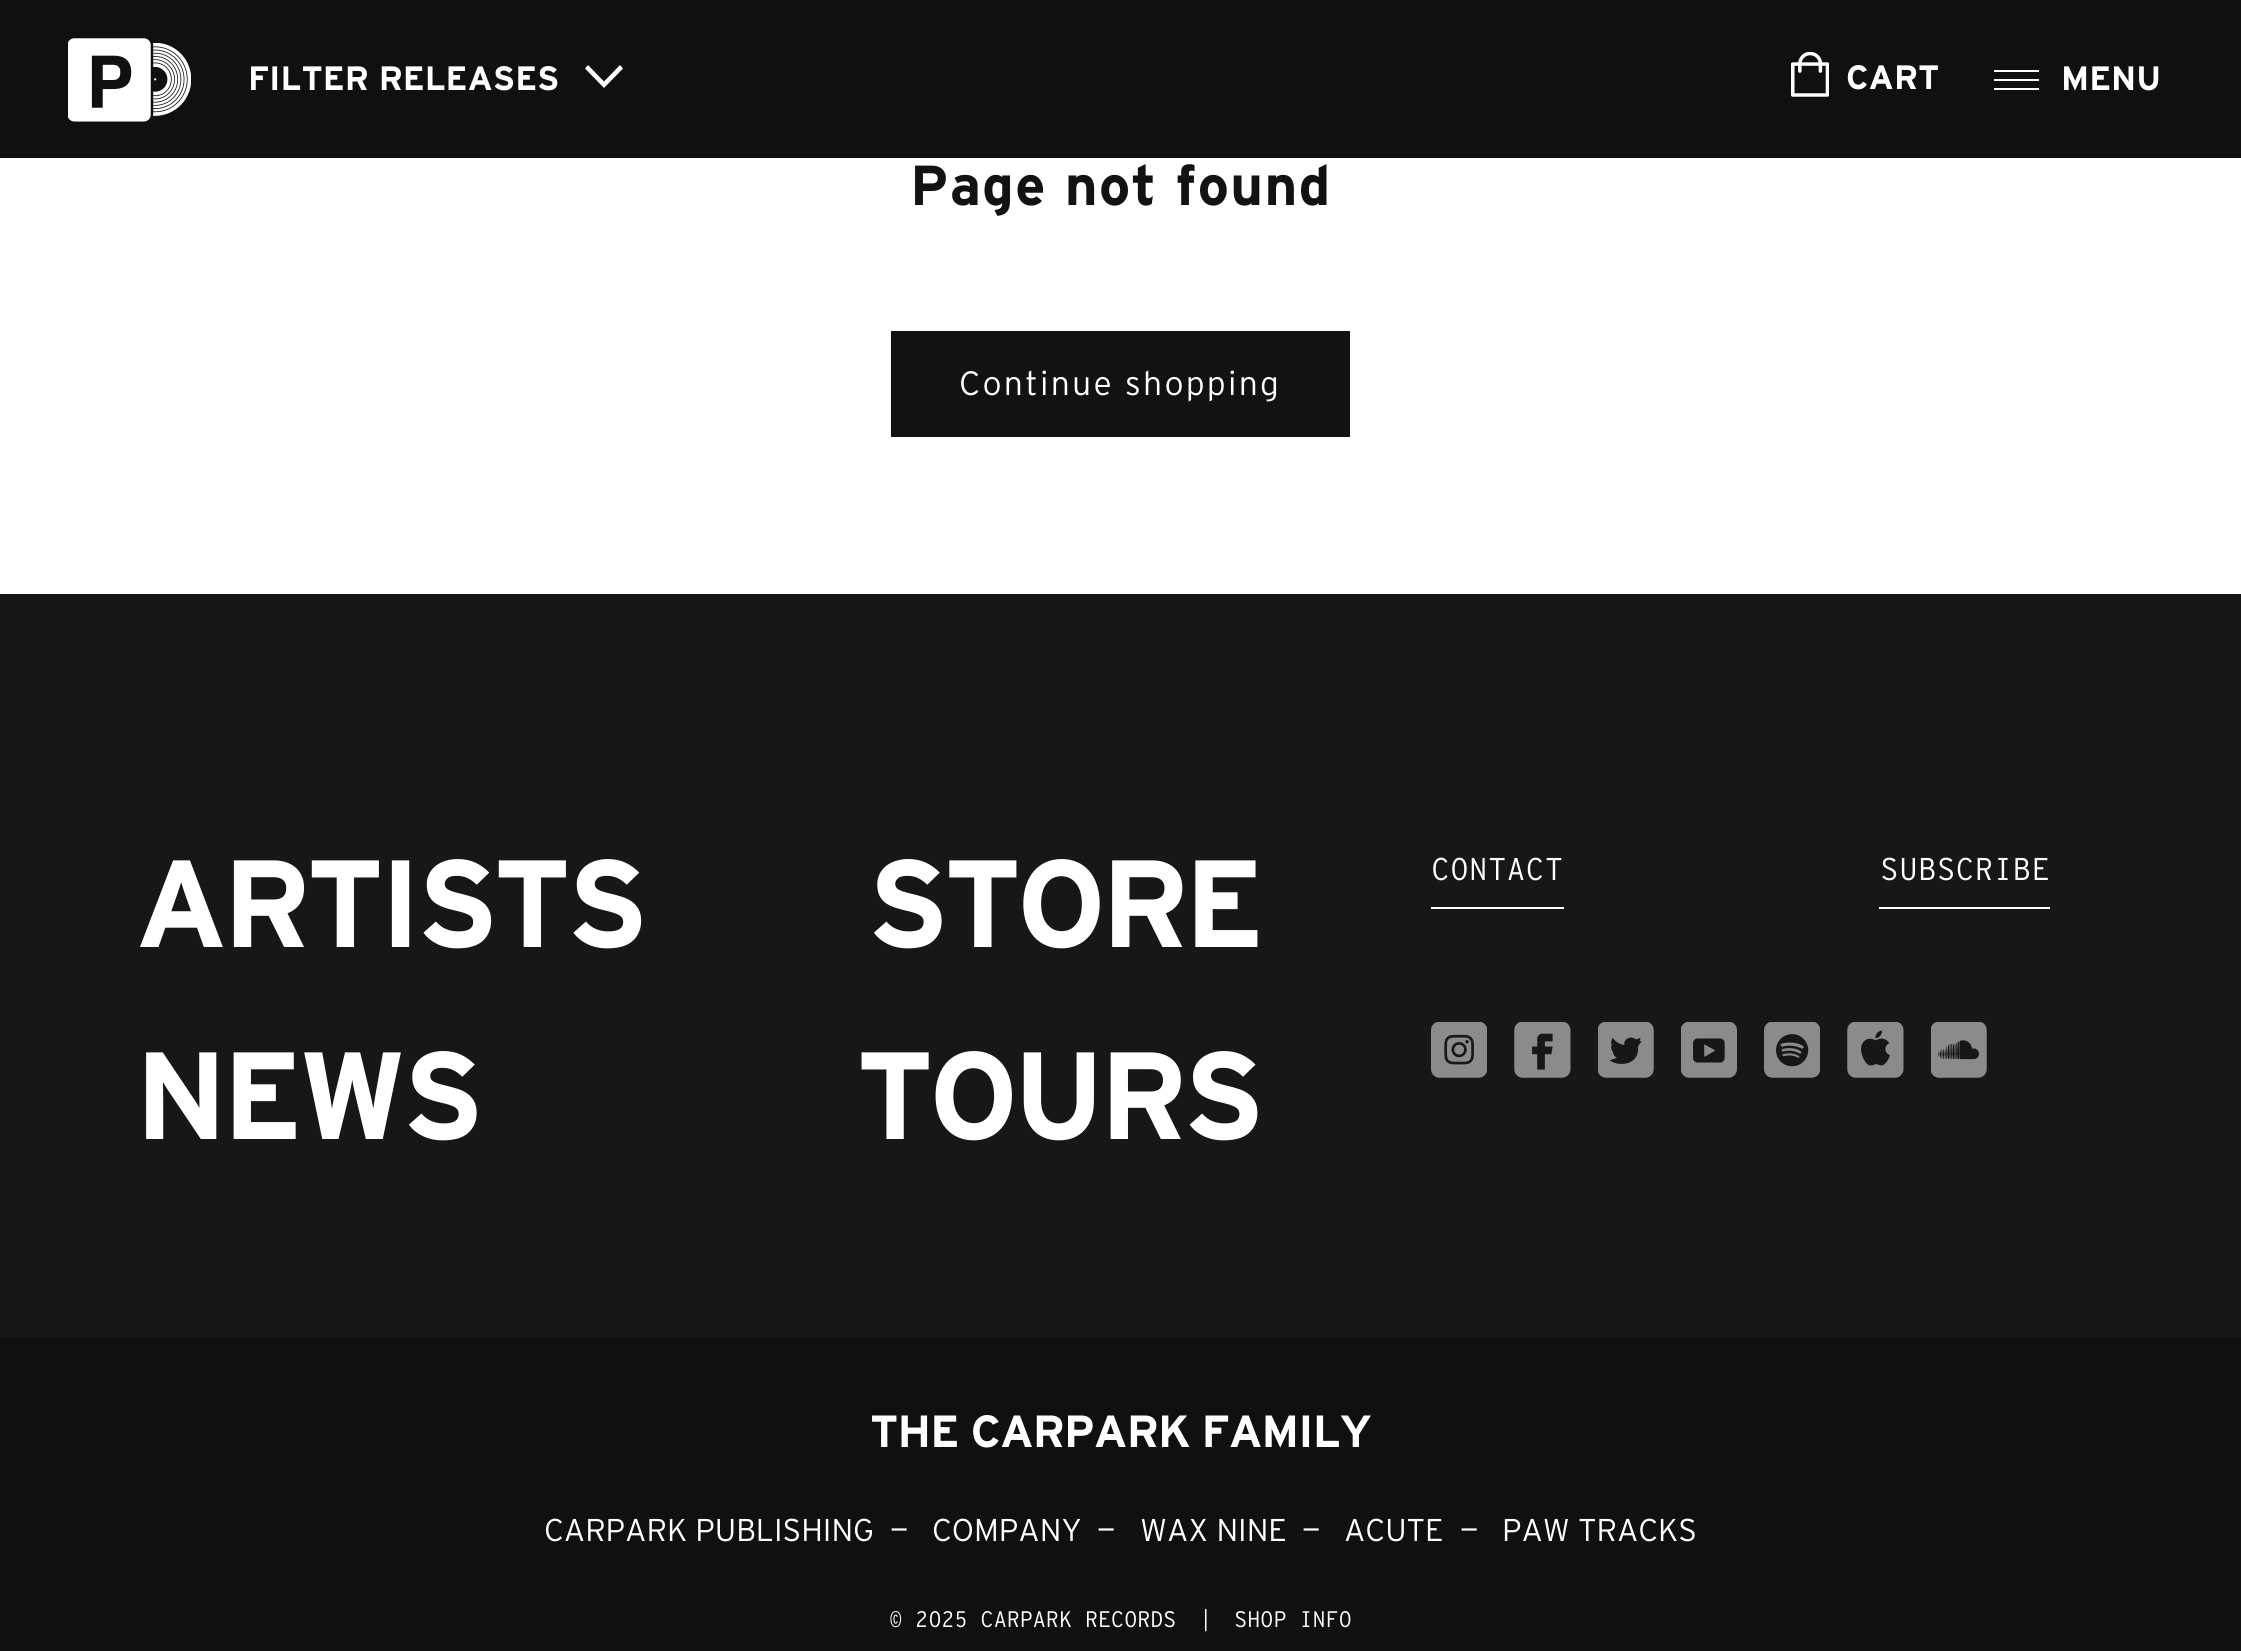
import math
import cairo

surface = cairo.ImageSurface(cairo.FORMAT_RGB24, 2241, 1651)
c = cairo.Context(surface)
options = cairo.FontOptions()
options.set_hint_metrics(cairo.HINT_METRICS_OFF)
options.set_hint_style(cairo.HINT_STYLE_NONE)
c.set_font_options(options)
c.set_miter_limit(4)
def C(code):
 c.set_source_rgb(*(v / 255 for v in bytes.fromhex(code[-6:])))
def F(family, size, italic, bold):
 c.select_font_face(family, cairo.FONT_SLANT_ITALIC if italic else cairo.FONT_SLANT_NORMAL, cairo.FONT_WEIGHT_BOLD if bold else cairo.FONT_WEIGHT_NORMAL)
 c.set_font_size(size)
def T(x, y, s):
 c.move_to(x, y)
 c.show_text(s)
def L(x, y, s, letter, word):
 c.move_to(x, y)
 for ch in s:
  c.show_text(ch)
  c.rel_move_to(letter + word * (ch == ' '), 0)
def R(x, y, w, h):
 c.rectangle(x, y, w, h)
 c.fill()
def I(path, x, y, w, h):
 c.save()
 c.set_source_surface(cairo.ImageSurface.create_from_png(path), x, y)
 c.rectangle(x, y, w, h)
 c.fill()
 c.restore()
C('ffffff')
c.paint()
C('101010')
R(0,0,2241,158)
I('1.png',68,38,83,84)
I('2.png',153,43,38,73)
F('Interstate',33.75,0,1)
C('ffffff')
T(248,90,'FILTER RELEASES')
c.new_path()
c.move_to(604,88)
c.line_to(585,68.5)
c.line_to(588,65)
c.line_to(604,81.5)
c.line_to(620,65)
c.line_to(623,68.5)
c.close_path()
c.fill()
I('3.png',1791,52,38,45)
T(1846,89,'CART')
F('Interstate',56.25,0,1)
C('121212')
L(910,205,'Page not found',1.4,0)
R(891,331,459,106)
F('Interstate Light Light',33.75,0,0)
C('ffffff')
L(959,395,'Continue shopping',2.25,0)
R(1994,70,45,2)
R(1994,79,45,2)
R(1994,88,45,2)
F('Interstate',33.75,0,1)
T(2061,90,'MENU')
C('171717')
R(0,594,2241,743)
F('Interstate',123.75,0,1)
C('ffffff')
L(135,947,'ARTISTS',-5,0)
L(135,1139,'NEWS',-5,0)
L(867,947,'STORE',-5,0)
L(856,1139,'TOURS',-5,0)
R(1431,907,133,2)
F('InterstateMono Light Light',31.5,0,0)
T(1431,880,'CONTACT')
R(1879,907,171,2)
T(1880,880,'SUBSCRIBE')
I('4.png',1431,1022,56,56)
I('5.png',1514,1022,57,56)
I('6.png',1598,1022,56,56)
I('7.png',1681,1022,56,56)
I('8.png',1764,1022,56,56)
I('9.png',1847,1022,57,56)
I('10.png',1931,1022,56,56)
C('101010')
R(0,1337,2241,314)
F('Interstate',45,0,1)
C('ffffff')
L(870,1447,'THE CARPARK FAMILY',-.9,0)
F('Interstate Light Light',31.5,0,0)
T(544,1541,'CARPARK PUBLISHING')
T(890,1541,'—')
T(932,1541,'COMPANY')
T(1097,1541,'—')
T(1140,1541,'WAX NINE')
T(1302,1541,'—')
T(1344,1541,'ACUTE')
T(1460,1541,'—')
T(1502,1541,'PAW TRACKS')
F('InterstateMono Light Light',22.5,0,0)
L(889,1627,'© 2025 CARPARK RECORDS',-.45,0)
L(1199,1627,'|',-.45,0)
L(1234,1627,'SHOP INFO',-.45,0)
surface.write_to_png('o.png')
